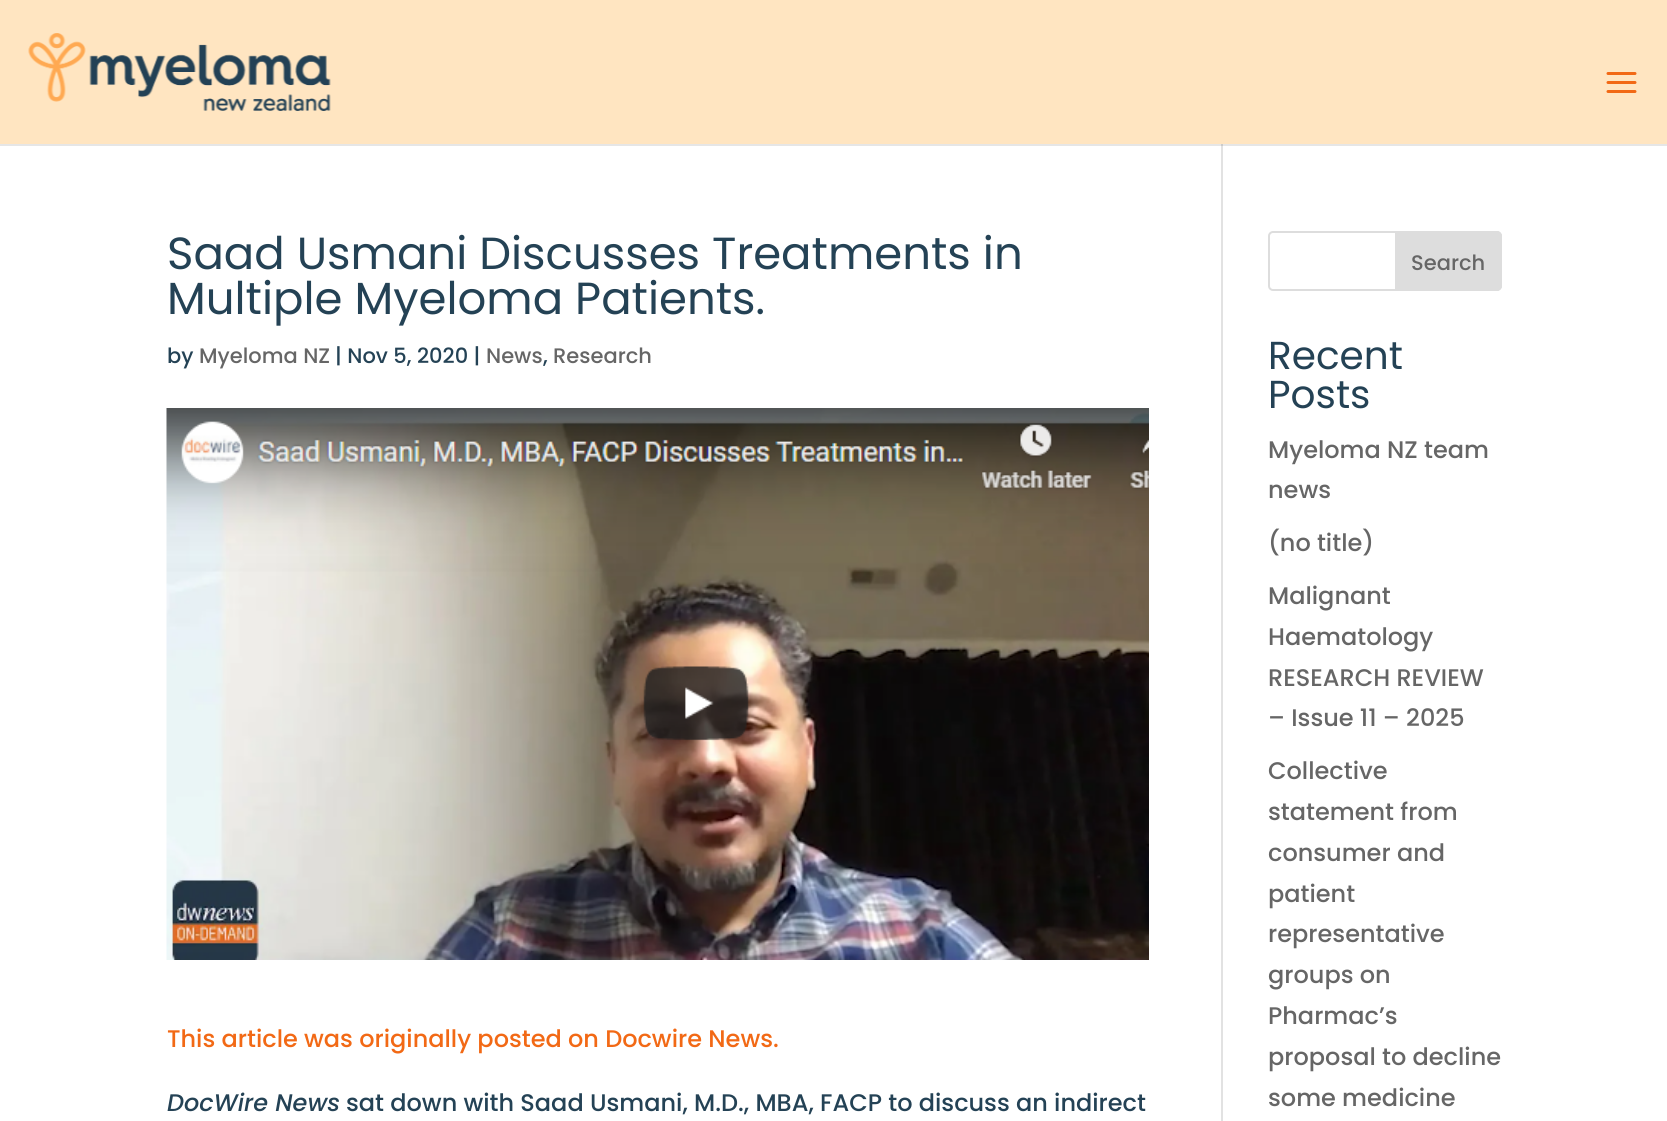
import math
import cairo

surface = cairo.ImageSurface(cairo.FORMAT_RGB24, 1667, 1121)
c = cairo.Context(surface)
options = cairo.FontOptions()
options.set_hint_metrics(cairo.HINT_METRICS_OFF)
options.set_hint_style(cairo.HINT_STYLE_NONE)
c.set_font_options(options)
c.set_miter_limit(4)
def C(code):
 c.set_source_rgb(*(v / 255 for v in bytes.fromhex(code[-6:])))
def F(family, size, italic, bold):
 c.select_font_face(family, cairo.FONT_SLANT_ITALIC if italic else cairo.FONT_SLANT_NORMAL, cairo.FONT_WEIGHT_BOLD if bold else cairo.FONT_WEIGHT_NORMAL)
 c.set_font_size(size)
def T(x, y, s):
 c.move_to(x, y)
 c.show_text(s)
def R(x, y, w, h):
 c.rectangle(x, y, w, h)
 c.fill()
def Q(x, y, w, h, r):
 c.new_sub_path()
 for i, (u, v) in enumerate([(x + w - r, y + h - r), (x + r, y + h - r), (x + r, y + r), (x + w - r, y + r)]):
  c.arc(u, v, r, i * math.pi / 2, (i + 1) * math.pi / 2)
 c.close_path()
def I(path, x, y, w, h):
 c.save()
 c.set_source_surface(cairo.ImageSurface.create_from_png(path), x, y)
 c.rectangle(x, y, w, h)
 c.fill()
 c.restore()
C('ffffff')
c.paint()
C('e6e6e6')
R(0,144,1667,2)
C('ffe5c1')
R(0,0,1667,144)
I('1.png',28,33,303,78)
I('2.png',1606,72,31,21)
C('e2e2e2')
R(1221,144,2,977)
C('cbcbcb')
R(1221,144,2,2)
F('Poppins',45,0,0)
C('244255')
T(167,269,'Saad Usmani Discusses Treatments in')
T(167,314,'Multiple Myeloma Patients.')
F('Poppins Medium',21,0,0)
T(167,363,'by')
C('666666')
T(199,363,'Myeloma NZ')
C('244255')
T(335,363,'| Nov 5, 2020 |')
C('666666')
T(486,363,'News')
C('244255')
T(543,363,',')
C('666666')
T(553,363,'Research')
I('3.png',166,408,983,552)
F('Poppins Medium',24,0,0)
C('f26915')
T(167,1047,'This article was originally posted on Docwire News.')
F('Poppins Medium',24,1,0)
C('244255')
T(167,1111,'DocWire News')
F('Poppins Medium',24,0,0)
T(346,1111,'sat down with Saad Usmani, M.D., MBA, FACP to discuss an indirect')
Q(1269,232,232,58,4)
C('dddddd')
c.stroke()
c.new_path()
c.move_to(1396,232)
c.line_to(1497,232)
c.curve_to(1499,232,1501,234,1501,236)
c.line_to(1501,286)
c.curve_to(1501,288,1499,290,1497,290)
c.line_to(1396,290)
c.close_path()
c.fill_preserve()
c.stroke()
F('Poppins Medium',21,0,0)
C('666666')
T(1411,270,'Search')
F('Poppins',39,0,0)
C('244255')
T(1268,369,'Recent')
T(1268,408,'Posts')
F('Poppins Medium',24,0,0)
C('666666')
T(1268,458,'Myeloma NZ team')
T(1268,498,'news')
T(1268,551,'(no title)')
T(1268,604,'Malignant')
T(1268,645,'Haematology')
T(1268,686,'RESEARCH REVIEW')
T(1268,726,'– Issue 11 – 2025')
T(1268,779,'Collective')
T(1268,820,'statement from')
T(1268,861,'consumer and')
T(1268,902,'patient')
T(1268,942,'representative')
T(1268,983,'groups on')
T(1268,1024,'Pharmac’s')
T(1268,1065,'proposal to decline')
T(1268,1106,'some medicine')
surface.write_to_png('o.png')
